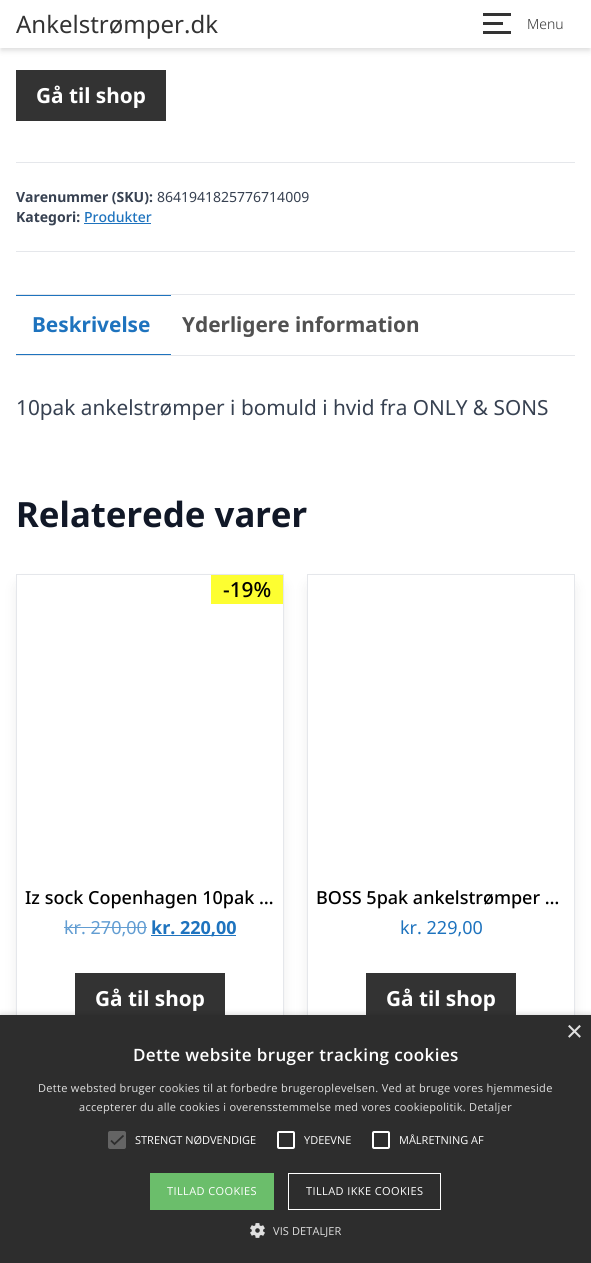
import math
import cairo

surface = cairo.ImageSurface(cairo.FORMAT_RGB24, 591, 1263)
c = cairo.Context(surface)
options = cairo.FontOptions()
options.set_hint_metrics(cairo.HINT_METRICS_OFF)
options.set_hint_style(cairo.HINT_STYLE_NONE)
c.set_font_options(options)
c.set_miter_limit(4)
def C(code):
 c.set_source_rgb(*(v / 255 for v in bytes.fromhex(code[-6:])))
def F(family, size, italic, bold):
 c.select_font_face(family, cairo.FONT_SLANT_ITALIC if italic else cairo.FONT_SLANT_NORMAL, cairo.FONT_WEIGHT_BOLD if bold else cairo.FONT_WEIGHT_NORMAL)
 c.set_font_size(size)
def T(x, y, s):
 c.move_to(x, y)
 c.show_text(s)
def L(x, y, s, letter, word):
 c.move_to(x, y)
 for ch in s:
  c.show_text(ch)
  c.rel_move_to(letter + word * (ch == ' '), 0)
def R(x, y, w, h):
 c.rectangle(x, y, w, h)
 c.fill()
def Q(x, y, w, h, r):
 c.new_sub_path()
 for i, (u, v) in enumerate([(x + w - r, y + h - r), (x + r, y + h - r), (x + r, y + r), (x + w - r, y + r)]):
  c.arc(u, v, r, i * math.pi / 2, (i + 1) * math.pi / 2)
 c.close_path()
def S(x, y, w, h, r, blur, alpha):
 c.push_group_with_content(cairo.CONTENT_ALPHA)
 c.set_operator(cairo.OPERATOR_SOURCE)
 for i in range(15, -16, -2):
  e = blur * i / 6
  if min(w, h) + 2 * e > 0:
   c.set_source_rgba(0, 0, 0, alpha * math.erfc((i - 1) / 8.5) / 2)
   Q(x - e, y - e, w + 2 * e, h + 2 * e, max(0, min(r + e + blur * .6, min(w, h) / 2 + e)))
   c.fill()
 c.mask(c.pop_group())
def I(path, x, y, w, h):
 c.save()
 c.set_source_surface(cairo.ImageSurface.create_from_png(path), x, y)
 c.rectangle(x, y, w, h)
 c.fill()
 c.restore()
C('ffffff')
c.paint()
C('000000')
S(1,3,589,46,0,2,.06)
S(1,5,589,46,0,3,.1)
C('ffffff')
R(0,0,591,48)
F('Noto Sans',24,0,0)
C('333333')
T(16,33,'Ankelstrømper.dk')
R(483,13,28,3)
R(483,22,20,3)
R(483,31,28,3)
F('Noto Sans Light',14,0,0)
T(527,29,'Menu')
R(16,70,150,51)
F('Noto Sans',20.8,0,1)
C('ffffff')
T(36,103,'Gå til shop')
C('e5e7eb')
R(16,162,559,1)
R(16,251,559,1)
F('Noto Sans',14,0,1)
C('374151')
T(16,202,'Varenummer (SKU):')
F('Noto Sans',14,0,0)
T(157,202,'8641941825776714009')
F('Noto Sans',14,0,1)
T(16,222,'Kategori:')
F('Noto Sans Medium',14,0,0)
C('1e73be')
T(84,222,'Produkter')
R(84,223,67,1)
C('e5e7eb')
R(16,294,559,1)
R(16,355,559,1)
C('1e73be')
R(16,295,155,1)
R(16,354,155,1)
F('Noto Sans',20.8,0,1)
T(32,332,'Beskrivelse')
C('515151')
T(182,332,'Yderligere information')
F('Noto Sans',20.8,0,0)
C('374151')
T(16,415,'10pak ankelstrømper i bomuld i hvid fra ONLY & SONS')
F('Noto Sans',34.75,0,1)
C('111827')
T(16,527,'Relaterede varer')
c.save()
c.set_fill_rule(cairo.FILL_RULE_EVEN_ODD)
c.new_path()
c.move_to(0,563)
c.line_to(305,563)
c.line_to(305,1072)
c.line_to(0,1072)
c.close_path()
c.move_to(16,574)
c.line_to(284,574)
c.line_to(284,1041)
c.line_to(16,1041)
c.close_path()
c.clip()
C('000000')
S(19,587,262,461,0,7.5,.1)
c.restore()
c.rectangle(16.5,574.5,267,466)
C('e5e7eb')
c.set_line_width(1)
c.stroke()
C('fdfe31')
R(211,575,72,29)
F('Noto Sans Medium',20.8,0,0)
C('000000')
T(223,597,'-19%')
F('Noto Sans Medium',18,0,0)
T(25,904,'Iz sock Copenhagen 10pak …')
F('Noto Sans',18,0,0)
C('629dd2')
T(64,934,'kr. 270,00')
R(64,927,83,1)
C('1e73be')
R(151,935,85,1)
F('Noto Sans',18,0,1)
T(151,934,'kr. 220,00')
C('333333')
R(75,973,150,42)
F('Noto Sans',20.8,0,1)
C('ffffff')
T(95,1006,'Gå til shop')
c.save()
c.set_fill_rule(cairo.FILL_RULE_EVEN_ODD)
c.new_path()
c.move_to(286,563)
c.line_to(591,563)
c.line_to(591,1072)
c.line_to(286,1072)
c.close_path()
c.move_to(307,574)
c.line_to(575,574)
c.line_to(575,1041)
c.line_to(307,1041)
c.close_path()
c.clip()
C('000000')
S(310,587,262,461,0,7.5,.1)
c.restore()
c.rectangle(307.5,574.5,267,466)
C('e5e7eb')
c.stroke()
F('Noto Sans Medium',18,0,0)
C('000000')
T(316,904,'BOSS 5pak ankelstrømper …')
F('Noto Sans',18,0,0)
C('1e73be')
T(400,934,'kr. 229,00')
C('333333')
R(366,973,150,42)
F('Noto Sans',20.8,0,1)
C('ffffff')
T(386,1006,'Gå til shop')
C('000000')
S(1,1017,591,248,0,4,.35)
C('2d2d2d')
R(0,1015,591,248)
F('Liberation Sans',29,0,0)
C('e0e0e0')
T(566,1041,'×')
F('Open Sans SemiBold',17,0,0)
C('ffffff')
L(133,1061,'Dette website bruger tracking cookies',.4,0)
F('Open Sans',11,0,0)
C('e0e0e0')
L(38,1092,'Dette websted bruger cookies til at forbedre brugeroplevelsen. Ved at bruge vores hjemmeside',.3,0)
L(79,1111,'accepterer du alle cookies i overensstemmelse med vores cookiepolitik. Detaljer',.3,0)
C('646464')
Q(108,1131,18,18,2)
c.fill()
c.new_path()
c.move_to(111,1140.5)
c.line_to(114.5,1144)
c.line_to(123.5,1135.5)
C('2d2d2d')
c.set_line_width(1.8)
c.stroke()
C('ffffff')
T(135,1144,'STRENGT NØDVENDIGE')
Q(278,1132,16,16,1)
c.set_line_width(2)
c.stroke()
T(304,1144,'YDEEVNE')
Q(373,1132,16,16,1)
c.stroke()
T(399,1144,'MÅLRETNING AF')
C('6bbe6b')
R(150,1173,124,37)
C('ffffff')
L(167,1195,'TILLAD COOKIES',.4,0)
c.rectangle(288.5,1173.5,152,36)
c.set_line_width(1)
c.stroke()
L(306,1195,'TILLAD IKKE COOKIES',.4,0)
I('1.png',250,1223,15,15)
C('e0e0e0')
L(273,1235,'VIS DETALJER',.1,0)
surface.write_to_png('o.png')
